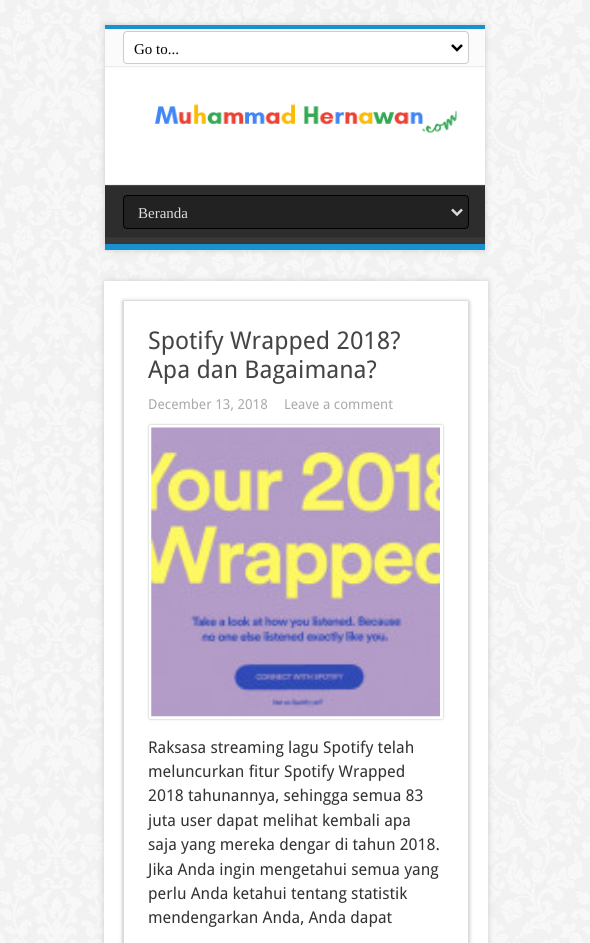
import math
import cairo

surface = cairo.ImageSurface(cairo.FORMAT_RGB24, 590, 943)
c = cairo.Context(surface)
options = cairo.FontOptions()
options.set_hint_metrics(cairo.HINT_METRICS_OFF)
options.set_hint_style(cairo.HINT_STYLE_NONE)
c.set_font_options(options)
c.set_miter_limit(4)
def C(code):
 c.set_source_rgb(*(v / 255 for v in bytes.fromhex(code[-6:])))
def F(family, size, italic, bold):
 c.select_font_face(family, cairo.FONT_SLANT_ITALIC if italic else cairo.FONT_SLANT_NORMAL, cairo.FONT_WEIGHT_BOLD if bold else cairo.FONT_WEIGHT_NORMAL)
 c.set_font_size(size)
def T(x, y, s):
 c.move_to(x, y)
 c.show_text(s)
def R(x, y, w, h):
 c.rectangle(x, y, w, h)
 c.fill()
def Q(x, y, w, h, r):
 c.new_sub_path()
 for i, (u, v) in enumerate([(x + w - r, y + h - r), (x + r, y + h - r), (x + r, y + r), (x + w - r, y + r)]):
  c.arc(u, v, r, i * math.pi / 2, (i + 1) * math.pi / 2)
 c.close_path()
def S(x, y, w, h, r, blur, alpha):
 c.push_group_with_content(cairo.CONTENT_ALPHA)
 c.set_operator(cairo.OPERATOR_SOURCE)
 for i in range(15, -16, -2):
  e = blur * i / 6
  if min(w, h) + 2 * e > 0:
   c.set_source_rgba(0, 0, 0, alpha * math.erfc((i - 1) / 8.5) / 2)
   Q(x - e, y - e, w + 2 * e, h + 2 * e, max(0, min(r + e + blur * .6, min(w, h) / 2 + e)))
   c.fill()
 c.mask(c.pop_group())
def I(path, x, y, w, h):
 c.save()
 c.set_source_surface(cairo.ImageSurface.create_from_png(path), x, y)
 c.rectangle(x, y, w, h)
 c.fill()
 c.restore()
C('ffffff')
c.paint()
I('1.png',0,0,590,943)
C('cacaca')
S(105,25,380,225,0,3,1)
C('ffffff')
R(105,68,380,118)
C('fbfbfb')
R(105,29,380,39)
C('1792cf')
R(105,25,380,4)
C('ececec')
R(105,66,380,1)
C('ffffff')
Q(123.5,31.5,345,32,3.5)
c.fill_preserve()
C('cccccc')
c.set_line_width(1)
c.stroke()
c.new_path()
c.move_to(452,45)
c.line_to(457,50)
c.line_to(462,45)
C('000000')
c.set_line_width(2.5)
c.stroke()
F('Liberation Serif',15,0,0)
T(134,54,'Go to...')
I('2.png',155,104,302,29)
I('3.png',105,184,380,60)
C('1792cf')
R(105,244,380,6)
C('222222')
Q(123.5,195.5,345,33,3.5)
c.fill_preserve()
C('000000')
c.set_line_width(1)
c.stroke()
c.new_path()
c.move_to(452,209.5)
c.line_to(457,214.5)
c.line_to(462,209.5)
C('dddddd')
c.set_line_width(2.5)
c.stroke()
T(138,218,'Beranda')
C('cacaca')
S(104,281,384,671,0,3,1)
C('ffffff')
R(104,281,384,662)
c.save()
c.set_fill_rule(cairo.FILL_RULE_EVEN_ODD)
c.new_path()
c.move_to(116,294)
c.line_to(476,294)
c.line_to(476,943)
c.line_to(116,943)
c.close_path()
c.move_to(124,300)
c.line_to(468,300)
c.curve_to(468.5,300,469,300.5,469,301)
c.line_to(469,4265)
c.curve_to(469,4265.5,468.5,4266,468,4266)
c.line_to(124,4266)
c.curve_to(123.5,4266,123,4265.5,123,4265)
c.line_to(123,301)
c.curve_to(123,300.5,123.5,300,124,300)
c.close_path()
c.clip()
C('b5b5b5')
S(123,301,346,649,1,2,1)
c.restore()
C('dddddd')
c.new_path()
c.move_to(124,300)
c.line_to(123,300)
c.line_to(124,302)
c.line_to(124,301)
c.line_to(468,301)
c.line_to(468,300)
c.close_path()
c.fill()
c.new_path()
c.move_to(469,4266)
c.line_to(467,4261)
c.line_to(468,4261)
c.line_to(468,301)
c.line_to(468,300)
c.line_to(469,301)
c.close_path()
c.fill()
c.new_path()
c.move_to(122,301)
c.line_to(123,300)
c.line_to(124,302)
c.line_to(124,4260)
c.line_to(123,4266)
c.close_path()
c.fill()
F('Droid Sans',24.4,0,0)
C('444444')
T(148,349,'Spotify Wrapped 2018?')
T(148,378,'Apa dan Bagaimana?')
F('Droid Sans',13.75,0,0)
C('aaaaaa')
T(148,409,'December 13, 2018')
T(284,409,'Leave a comment')
C('b5b5b5')
S(149,425,294,294,1,1,1)
C('ffffff')
Q(149,425,294,294,1)
c.fill()
I('4.png',151,427,289,290)
F('Droid Sans',16.25,0,0)
C('333333')
T(148,753,'Raksasa streaming lagu Spotify telah')
T(148,777,'meluncurkan fitur Spotify Wrapped')
T(148,801,'2018 tahunannya, sehingga semua 83')
T(148,826,'juta user dapat melihat kembali apa')
T(148,850,'saja yang mereka dengar di tahun 2018.')
T(148,875,'Jika Anda ingin mengetahui semua yang')
T(148,899,'perlu Anda ketahui tentang statistik')
T(148,923,'mendengarkan Anda, Anda dapat')
surface.write_to_png('o.png')
